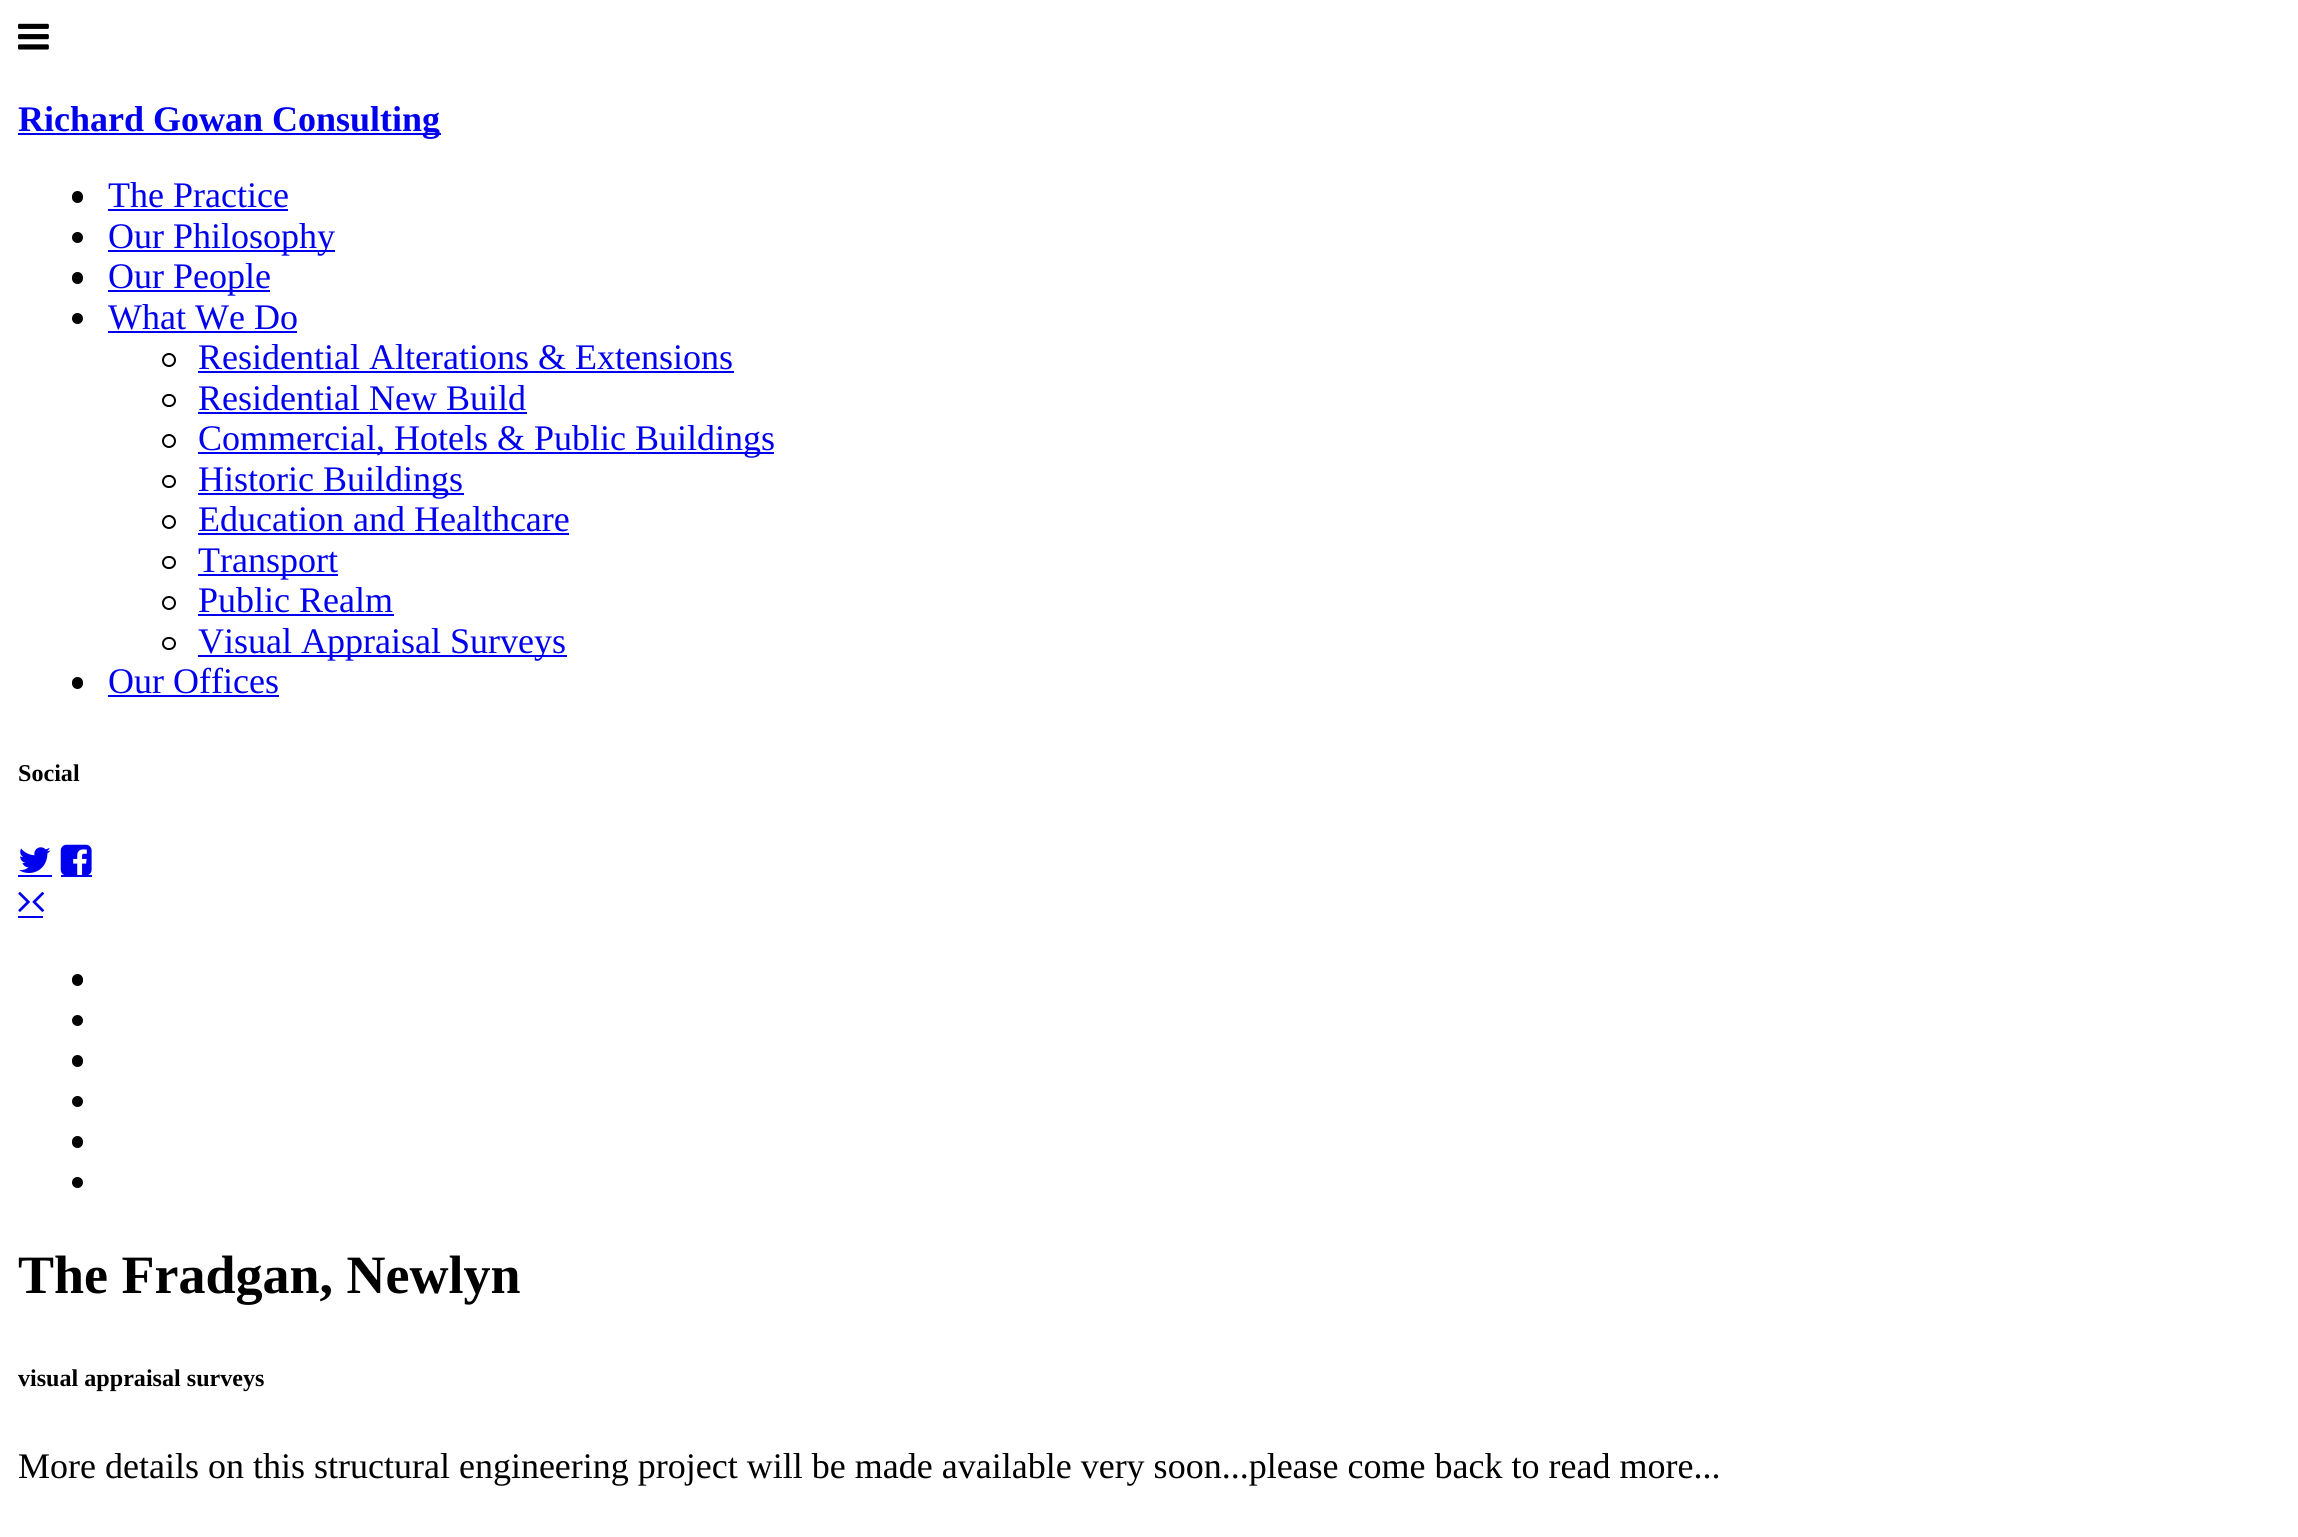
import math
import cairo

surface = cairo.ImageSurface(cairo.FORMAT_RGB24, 2298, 1537)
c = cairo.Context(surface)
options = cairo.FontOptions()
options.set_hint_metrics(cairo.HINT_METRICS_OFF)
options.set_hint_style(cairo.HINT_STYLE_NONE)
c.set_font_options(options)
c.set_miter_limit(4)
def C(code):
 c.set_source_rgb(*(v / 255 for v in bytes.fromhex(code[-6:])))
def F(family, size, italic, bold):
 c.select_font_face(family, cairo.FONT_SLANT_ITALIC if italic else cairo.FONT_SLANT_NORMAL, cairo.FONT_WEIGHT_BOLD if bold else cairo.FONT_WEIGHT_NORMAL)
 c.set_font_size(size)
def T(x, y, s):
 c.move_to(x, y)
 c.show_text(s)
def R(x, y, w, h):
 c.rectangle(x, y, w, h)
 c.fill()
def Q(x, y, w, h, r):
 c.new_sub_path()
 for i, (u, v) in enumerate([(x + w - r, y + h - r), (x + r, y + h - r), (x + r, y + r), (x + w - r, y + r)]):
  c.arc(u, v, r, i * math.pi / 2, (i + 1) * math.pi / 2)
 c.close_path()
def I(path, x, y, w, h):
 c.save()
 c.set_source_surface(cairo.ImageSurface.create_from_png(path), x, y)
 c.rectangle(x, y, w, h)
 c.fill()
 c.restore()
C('ffffff')
c.paint()
I('1.png',18,23,31,27)
C('0000ee')
R(18,133,423,2)
F('Liberation Serif',36,0,1)
T(18,131,'Richard Gowan Consulting')
C('000000')
Q(72,191,11,12,5.5)
c.fill()
F('Liberation Serif',36,0,0)
C('0000ee')
T(108,207,'The Practice')
R(108,209,180,2)
C('000000')
c.new_path()
c.arc(77.5,237.5,5.5,0,2 * math.pi)
c.fill()
C('0000ee')
R(108,250,227,2)
T(108,248,'Our Philosophy')
C('000000')
Q(72,272,11,12,5.5)
c.fill()
C('0000ee')
R(108,290,162,2)
T(108,288,'Our People')
C('000000')
c.new_path()
c.arc(77.5,318.5,5.5,0,2 * math.pi)
c.fill()
C('0000ee')
T(108,329,'What We Do')
R(108,331,189,2)
c.new_path()
c.arc(169,360,6,0,2 * math.pi)
C('000000')
c.stroke()
C('0000ee')
T(198,369,'Residential Alterations & Extensions')
R(198,371,536,2)
Q(163,395,12,11,5.5)
C('000000')
c.stroke()
C('0000ee')
T(198,410,'Residential New Build')
R(198,412,329,2)
c.new_path()
c.arc(169,441,6,0,2 * math.pi)
C('000000')
c.stroke()
C('0000ee')
R(198,452,576,2)
T(198,450,'Commercial, Hotels & Public Buildings')
Q(163,476,12,11,5.5)
C('000000')
c.stroke()
C('0000ee')
R(198,493,266,2)
T(198,491,'Historic Buildings')
c.new_path()
c.arc(169,522,6,0,2 * math.pi)
C('000000')
c.stroke()
C('0000ee')
T(198,531,'Education and Healthcare')
R(198,533,371,2)
Q(163,557,12,11,5.5)
C('000000')
c.stroke()
C('0000ee')
R(198,574,140,2)
T(198,572,'Transport')
c.new_path()
c.arc(169,603,6,0,2 * math.pi)
C('000000')
c.stroke()
C('0000ee')
T(198,612,'Public Realm')
R(198,614,196,2)
Q(163,638,12,11,5.5)
C('000000')
c.stroke()
C('0000ee')
R(198,655,369,2)
T(198,653,'Visual Appraisal Surveys')
C('000000')
Q(72,677,11,12,5.5)
c.fill()
C('0000ee')
T(108,693,'Our Offices')
R(108,695,171,2)
F('Liberation Serif',24.1,0,1)
C('000000')
T(18,781,'Social')
C('0000ee')
R(18,875,34,2)
I('2.png',19,847,32,26)
R(61,875,31,2)
I('3.png',60,844,32,31)
R(18,916,25,2)
I('4.png',18,892,12,20)
I('5.png',32,892,13,20)
C('000000')
Q(72,974,11,12,5.5)
c.fill()
c.arc(77.5,1020.5,5.5,0,2 * math.pi)
c.fill()
Q(72,1055,11,12,5.5)
c.fill()
c.arc(77.5,1101.5,5.5,0,2 * math.pi)
c.fill()
Q(72,1136,11,12,5.5)
c.fill()
c.arc(77.5,1182.5,5.5,0,2 * math.pi)
c.fill()
F('Liberation Serif',54,0,1)
T(18,1293,'The Fradgan, Newlyn')
F('Liberation Serif',24.1,0,1)
T(18,1386,'visual appraisal surveys')
F('Liberation Serif',36,0,0)
T(18,1478,'More details on this structural engineering project will be made available very soon...please come back to read more...')
surface.write_to_png('o.png')
